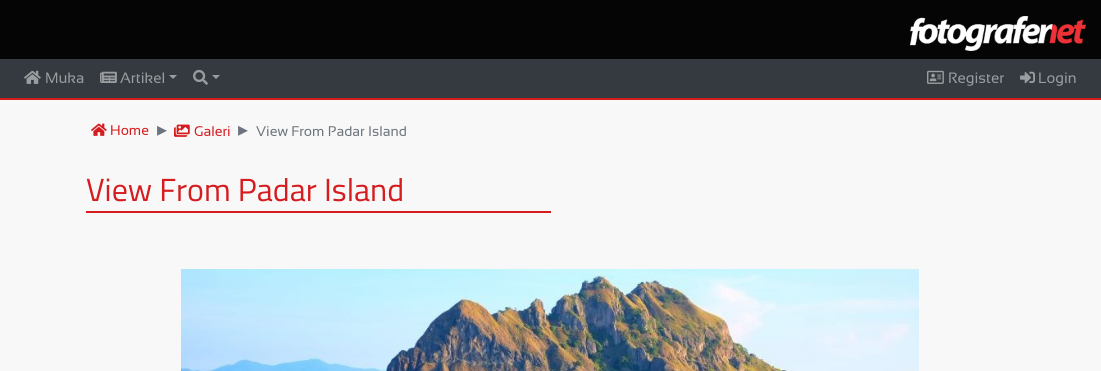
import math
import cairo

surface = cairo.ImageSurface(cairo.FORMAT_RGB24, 1101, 371)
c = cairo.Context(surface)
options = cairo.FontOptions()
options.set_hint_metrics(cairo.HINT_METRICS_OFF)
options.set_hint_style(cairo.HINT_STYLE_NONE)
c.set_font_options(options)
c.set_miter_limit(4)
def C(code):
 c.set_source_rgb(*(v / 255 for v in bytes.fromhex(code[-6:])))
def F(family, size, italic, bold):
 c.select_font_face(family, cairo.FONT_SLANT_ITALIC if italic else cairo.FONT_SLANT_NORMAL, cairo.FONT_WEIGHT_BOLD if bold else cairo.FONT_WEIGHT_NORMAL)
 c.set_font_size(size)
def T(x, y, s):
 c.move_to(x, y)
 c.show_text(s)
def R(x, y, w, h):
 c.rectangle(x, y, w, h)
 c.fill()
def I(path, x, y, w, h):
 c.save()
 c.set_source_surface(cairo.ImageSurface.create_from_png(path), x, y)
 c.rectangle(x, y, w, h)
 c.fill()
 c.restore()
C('f8f8f8')
c.paint()
C('050505')
R(0,0,1101,59)
I('1.png',910,16,176,35)
C('343a40')
R(0,59,1101,39)
C('d51c1f')
R(0,98,1101,2)
I('2.png',24,70,17,14)
F('Sansation',15,0,0)
C('9a9da0')
T(45,83,'Muka')
I('3.png',100,71,17,12)
T(120,83,'Artikel')
c.new_path()
c.move_to(169,75)
c.line_to(177,75)
c.line_to(173,79)
c.close_path()
c.fill()
I('4.png',193,69,15,16)
c.new_path()
c.move_to(212,75)
c.line_to(220,75)
c.line_to(216,79)
c.close_path()
c.fill()
I('5.png',927,70,17,14)
T(948,83,'Register')
I('6.png',1020,71,15,13)
T(1038,83,'Login')
I('7.png',91,123,16,13)
F('Sansation',14,0,0)
C('d51c1f')
T(110,135,'Home')
F('DejaVu Sans',20,0,0)
C('6c757d')
T(157,136,'▸')
I('8.png',174,124,16,13)
F('Sansation',14,0,0)
C('d51c1f')
T(194,136,'Galeri')
F('DejaVu Sans',20,0,0)
C('6c757d')
T(238,136,'▸')
F('Sansation',14,0,0)
T(256,136,'View From Padar Island')
F('Titillium Web',32,0,0)
C('d51c1f')
T(86,201,'View From Padar Island')
R(86,211,465,2)
I('9.png',181,269,738,102)
surface.write_to_png('o.png')
